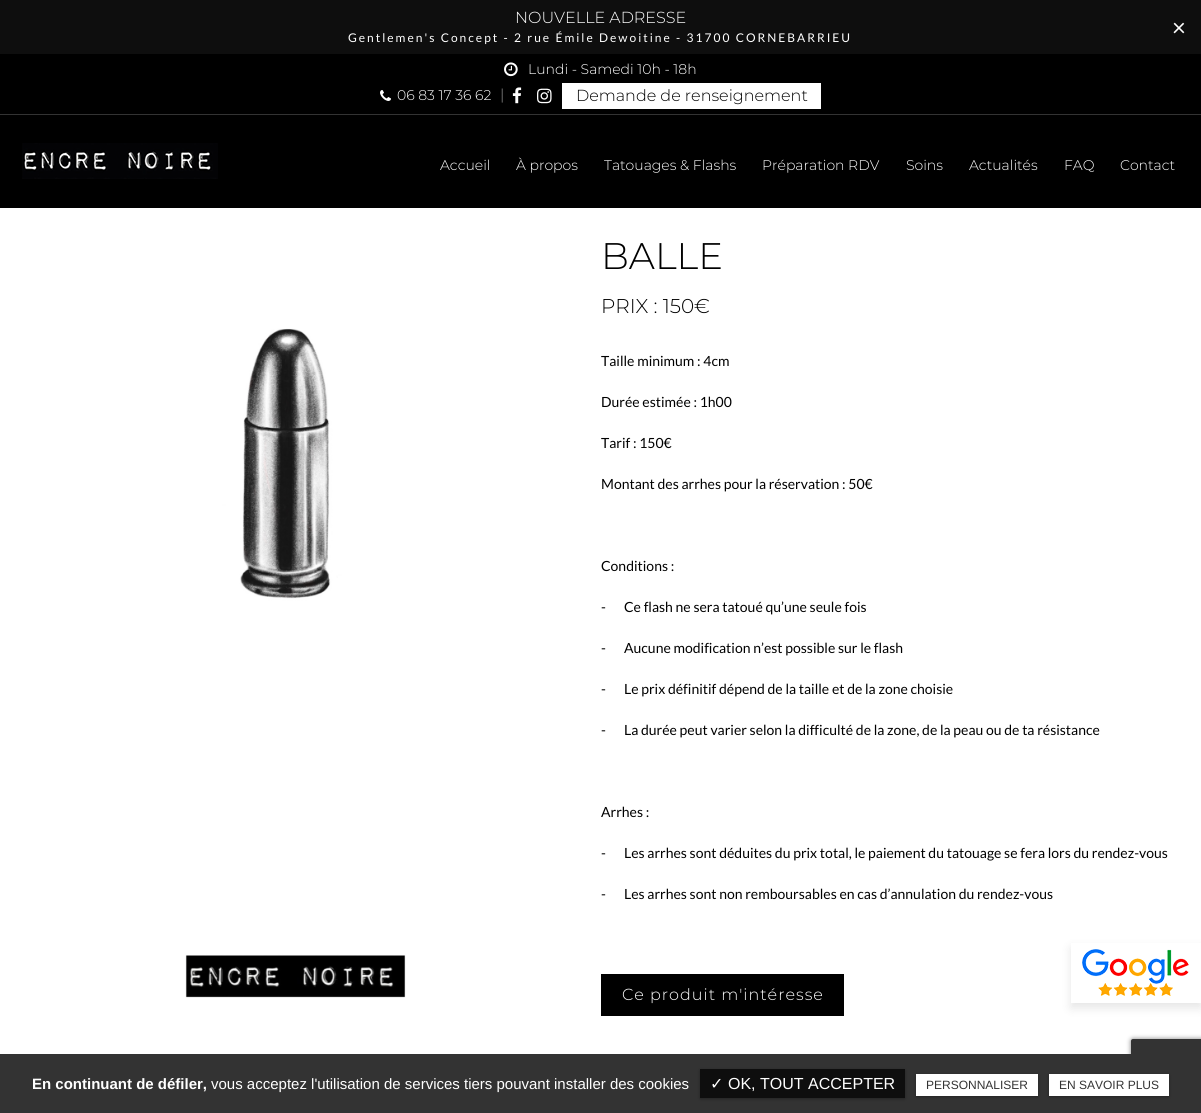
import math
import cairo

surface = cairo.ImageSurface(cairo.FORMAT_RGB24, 1201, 1113)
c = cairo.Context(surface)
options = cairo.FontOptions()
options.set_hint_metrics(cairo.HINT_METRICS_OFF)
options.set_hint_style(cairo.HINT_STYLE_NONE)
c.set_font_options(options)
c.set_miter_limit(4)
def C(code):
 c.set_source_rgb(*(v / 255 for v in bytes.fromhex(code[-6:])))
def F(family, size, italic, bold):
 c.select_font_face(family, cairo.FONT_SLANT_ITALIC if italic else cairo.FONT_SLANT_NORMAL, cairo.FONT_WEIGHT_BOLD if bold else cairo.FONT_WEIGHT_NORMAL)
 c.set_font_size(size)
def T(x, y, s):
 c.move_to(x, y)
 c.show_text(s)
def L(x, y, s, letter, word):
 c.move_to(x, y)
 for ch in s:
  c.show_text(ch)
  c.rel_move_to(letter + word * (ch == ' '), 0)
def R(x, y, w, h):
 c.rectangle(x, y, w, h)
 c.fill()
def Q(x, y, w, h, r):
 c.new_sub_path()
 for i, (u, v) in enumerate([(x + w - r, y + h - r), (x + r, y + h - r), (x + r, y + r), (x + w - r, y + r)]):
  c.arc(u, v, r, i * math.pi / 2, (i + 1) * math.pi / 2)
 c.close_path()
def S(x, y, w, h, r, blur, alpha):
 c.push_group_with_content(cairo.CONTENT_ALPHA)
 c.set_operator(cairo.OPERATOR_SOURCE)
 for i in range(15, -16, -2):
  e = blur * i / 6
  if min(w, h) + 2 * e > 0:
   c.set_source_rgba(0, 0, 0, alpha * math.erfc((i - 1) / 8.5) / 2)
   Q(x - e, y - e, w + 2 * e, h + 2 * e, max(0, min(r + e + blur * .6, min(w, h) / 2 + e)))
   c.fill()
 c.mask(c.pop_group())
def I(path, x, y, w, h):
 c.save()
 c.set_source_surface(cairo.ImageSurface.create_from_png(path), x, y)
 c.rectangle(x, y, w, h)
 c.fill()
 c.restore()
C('ffffff')
c.paint()
C('0e0e0e')
R(0,0,1201,54)
F('Montserrat Thin',16,0,0)
C('ffffff')
T(515,23,'NOUVELLE ADRESSE')
F('Lato',12,0,0)
L(348,42,'Gentlemen\'s Concept - 2 rue Émile Dewoitine - 31700 CORNEBARRIEU',2,0)
F('Lato',24,0,0)
T(1172,36,'×')
C('000000')
R(0,54,1201,60)
I('1.png',504,62,14,15)
F('Montserrat Thin',14,0,0)
C('ffffff')
T(528,74,'Lundi - Samedi 10h - 18h')
I('2.png',380,90,11,11)
T(397,100,'06 83 17 36 62')
F('Lato',15,0,0)
C('666666')
T(500,100,'|')
I('3.png',512,87,10,17)
I('4.png',537,88,15,16)
C('ffffff')
R(562,83,259,26)
F('Montserrat Thin',16,0,0)
C('000000')
T(576,101,'Demande de renseignement')
R(0,115,1201,93)
C('333333')
R(0,114,1201,1)
I('5.png',22,143,196,36)
F('Montserrat Thin',14,0,0)
C('ffffff')
T(440,170,'Accueil')
T(516,170,'À propos')
T(604,170,'Tatouages & Flashs')
T(762,170,'Préparation RDV')
T(906,170,'Soins')
T(969,170,'Actualités')
T(1064,170,'FAQ')
T(1120,170,'Contact')
c.save()
c.set_fill_rule(cairo.FILL_RULE_EVEN_ODD)
c.new_path()
c.move_to(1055,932)
c.line_to(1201,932)
c.line_to(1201,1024)
c.line_to(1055,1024)
c.close_path()
c.move_to(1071,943)
c.line_to(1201,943)
c.line_to(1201,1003)
c.line_to(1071,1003)
c.close_path()
c.clip()
C('000000')
S(1071,948,130,60,0,5,.1)
c.restore()
I('6.png',1082,949,107,47)
I('7.png',185,328,221,670)
F('Montserrat Thin',37,0,0)
C('000000')
T(601,269,'BALLE')
F('Montserrat Thin',20,0,0)
T(601,313,'PRIX : 150€')
F('Lato',14,0,0)
T(601,366,'Taille minimum : 4cm')
T(601,407,'Durée estimée : 1h00')
T(601,448,'Tarif : 150€')
T(601,489,'Montant des arrhes pour la réservation : 50€')
T(601,571,'Conditions :')
T(601,612,'-')
T(624,612,'Ce flash ne sera tatoué qu’une seule fois')
T(601,653,'-')
T(624,653,'Aucune modification n’est possible sur le flash')
T(601,694,'-')
T(624,694,'Le prix définitif dépend de la taille et de la zone choisie')
T(601,735,'-')
T(624,735,'La durée peut varier selon la difficulté de la zone, de la peau ou de ta résistance')
T(601,817,'Arrhes :')
T(601,858,'-')
T(624,858,'Les arrhes sont déduites du prix total, le paiement du tatouage se fera lors du rendez-vous')
T(601,899,'-')
T(624,899,'Les arrhes sont non remboursables en cas d’annulation du rendez-vous')
R(601,974,243,42)
F('Montserrat Thin',16,0,0)
C('ffffff')
L(622,1000,'Ce produit m\'intéresse',1,0)
C('808080')
S(1131,1039,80,60,2,2.5,1)
C('333333')
Q(1131,1039,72,60,2)
c.fill()
R(0,1054,1201,59)
F('Liberation Sans',15,0,1)
C('ffffff')
T(32,1089,'En continuant de défiler,')
F('Liberation Sans',15,0,0)
T(211,1089,'vous acceptez l\'utilisation de services tiers pouvant installer des cookies')
C('000000')
S(700,1070,205,29,0,1.5,.3)
C('0e0e0e')
R(700,1069,205,29)
F('DejaVu Sans',16,0,0)
C('ffffff')
T(710,1089,'✓')
F('Liberation Sans',16,0,0)
T(728,1089,'OK, TOUT ACCEPTER')
C('000000')
S(916,1075,122,22,0,1.5,.3)
C('ffffff')
R(916,1074,122,22)
F('Liberation Sans',12,0,0)
C('333333')
T(926,1089,'PERSONNALISER')
C('000000')
S(1049,1075,120,22,0,1.5,.3)
C('ffffff')
R(1049,1074,120,22)
C('333333')
T(1059,1089,'EN SAVOIR PLUS')
surface.write_to_png('o.png')
